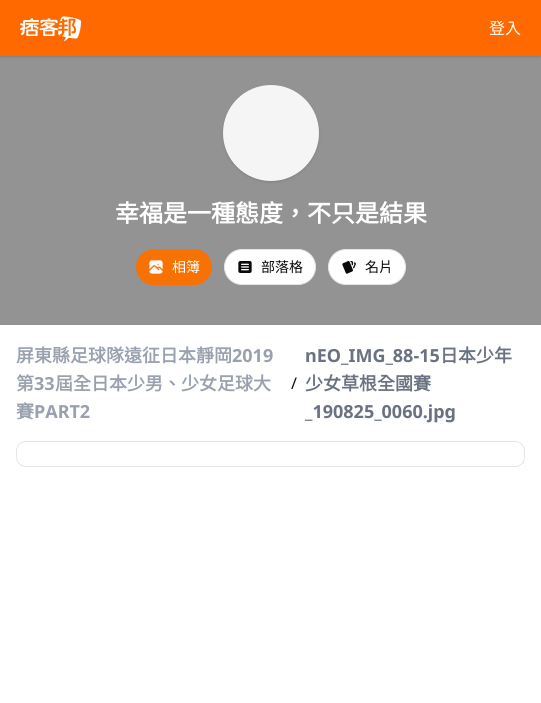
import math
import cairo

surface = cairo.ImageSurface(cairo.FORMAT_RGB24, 541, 703)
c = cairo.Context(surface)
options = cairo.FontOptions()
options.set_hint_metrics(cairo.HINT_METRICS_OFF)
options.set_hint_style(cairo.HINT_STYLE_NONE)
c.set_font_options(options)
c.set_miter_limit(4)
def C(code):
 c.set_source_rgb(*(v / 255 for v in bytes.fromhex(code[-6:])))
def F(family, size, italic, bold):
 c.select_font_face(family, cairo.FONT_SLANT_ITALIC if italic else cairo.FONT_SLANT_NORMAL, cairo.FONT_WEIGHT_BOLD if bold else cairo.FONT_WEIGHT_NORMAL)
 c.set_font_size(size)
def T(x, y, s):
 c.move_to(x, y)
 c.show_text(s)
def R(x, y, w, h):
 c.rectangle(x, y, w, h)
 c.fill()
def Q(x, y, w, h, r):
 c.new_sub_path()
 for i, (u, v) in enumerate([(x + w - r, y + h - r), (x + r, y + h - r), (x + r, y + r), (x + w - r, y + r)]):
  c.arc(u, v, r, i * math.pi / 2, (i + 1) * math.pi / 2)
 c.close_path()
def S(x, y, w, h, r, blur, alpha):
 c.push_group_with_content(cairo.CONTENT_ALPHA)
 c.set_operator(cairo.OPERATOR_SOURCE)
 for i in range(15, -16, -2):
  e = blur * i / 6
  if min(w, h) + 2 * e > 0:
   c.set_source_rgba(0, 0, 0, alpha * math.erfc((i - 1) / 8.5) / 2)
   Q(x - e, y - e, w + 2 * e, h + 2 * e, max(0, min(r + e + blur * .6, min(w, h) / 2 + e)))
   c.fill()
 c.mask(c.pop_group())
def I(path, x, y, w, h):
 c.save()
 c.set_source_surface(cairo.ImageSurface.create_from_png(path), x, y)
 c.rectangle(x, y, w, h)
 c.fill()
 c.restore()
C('ffffff')
c.paint()
C('939393')
R(0,56,541,269)
C('000000')
S(1,2,539,54,0,1,.1)
S(0,1,541,56,0,1.5,.1)
C('ff6900')
R(0,0,541,56)
I('1.png',20,16,61,25)
F('Noto Sans CJK TC',16,0,0)
C('ffffff')
T(489,34,'登入')
C('000000')
S(224,87,94,94,47,1,.1)
S(223,86,96,96,48,1.5,.1)
C('f5f5f5')
c.arc(271,133,48,0,2 * math.pi)
c.fill()
F('Noto Sans CJK TC',24,0,1)
C('ffffff')
T(115,222,'幸福是一種態度，不只是結果')
C('f87103')
Q(136,249,76,36,18)
c.fill()
I('2.png',149,260,14,14)
F('Noto Sans CJK TC',14,0,0)
C('ffffff')
T(172,272,'相簿')
Q(224.5,249.5,91,35,17.5)
c.fill_preserve()
C('e5e5e5')
c.set_line_width(1)
c.stroke()
I('3.png',238,261,14,12)
C('0a0a0a')
T(261,272,'部落格')
C('ffffff')
Q(328.5,249.5,77,35,17.5)
c.fill_preserve()
C('e5e5e5')
c.stroke()
I('4.png',342,261,14,13)
C('0a0a0a')
T(365,272,'名片')
F('Noto Sans CJK TC',18,0,1)
C('99a1af')
T(16,362,'屏東縣足球隊遠征日本靜岡')
F('Noto Sans',18,0,1)
T(232,362,'2019')
F('Noto Sans CJK TC',18,0,1)
T(16,390,'第')
F('Noto Sans',18,0,1)
T(34,390,'33')
F('Noto Sans CJK TC',18,0,1)
T(55,390,'屆全日本少男、少女足球大')
T(16,418,'賽')
F('Noto Sans',18,0,1)
T(34,418,'PART2')
F('Noto Sans',16,0,0)
C('0a0a0a')
T(291,389,'/')
F('Noto Sans',18,0,1)
C('6a7282')
T(305,362,'nEO_IMG_88-15')
F('Noto Sans CJK TC',18,0,1)
T(440,362,'日本少年')
T(305,390,'少女草根全國賽')
F('Noto Sans',18,0,1)
T(305,418,'_190825_0060.jpg')
Q(16.5,441.5,508,25,9.5)
C('e5e5e5')
c.stroke()
surface.write_to_png('o.png')
